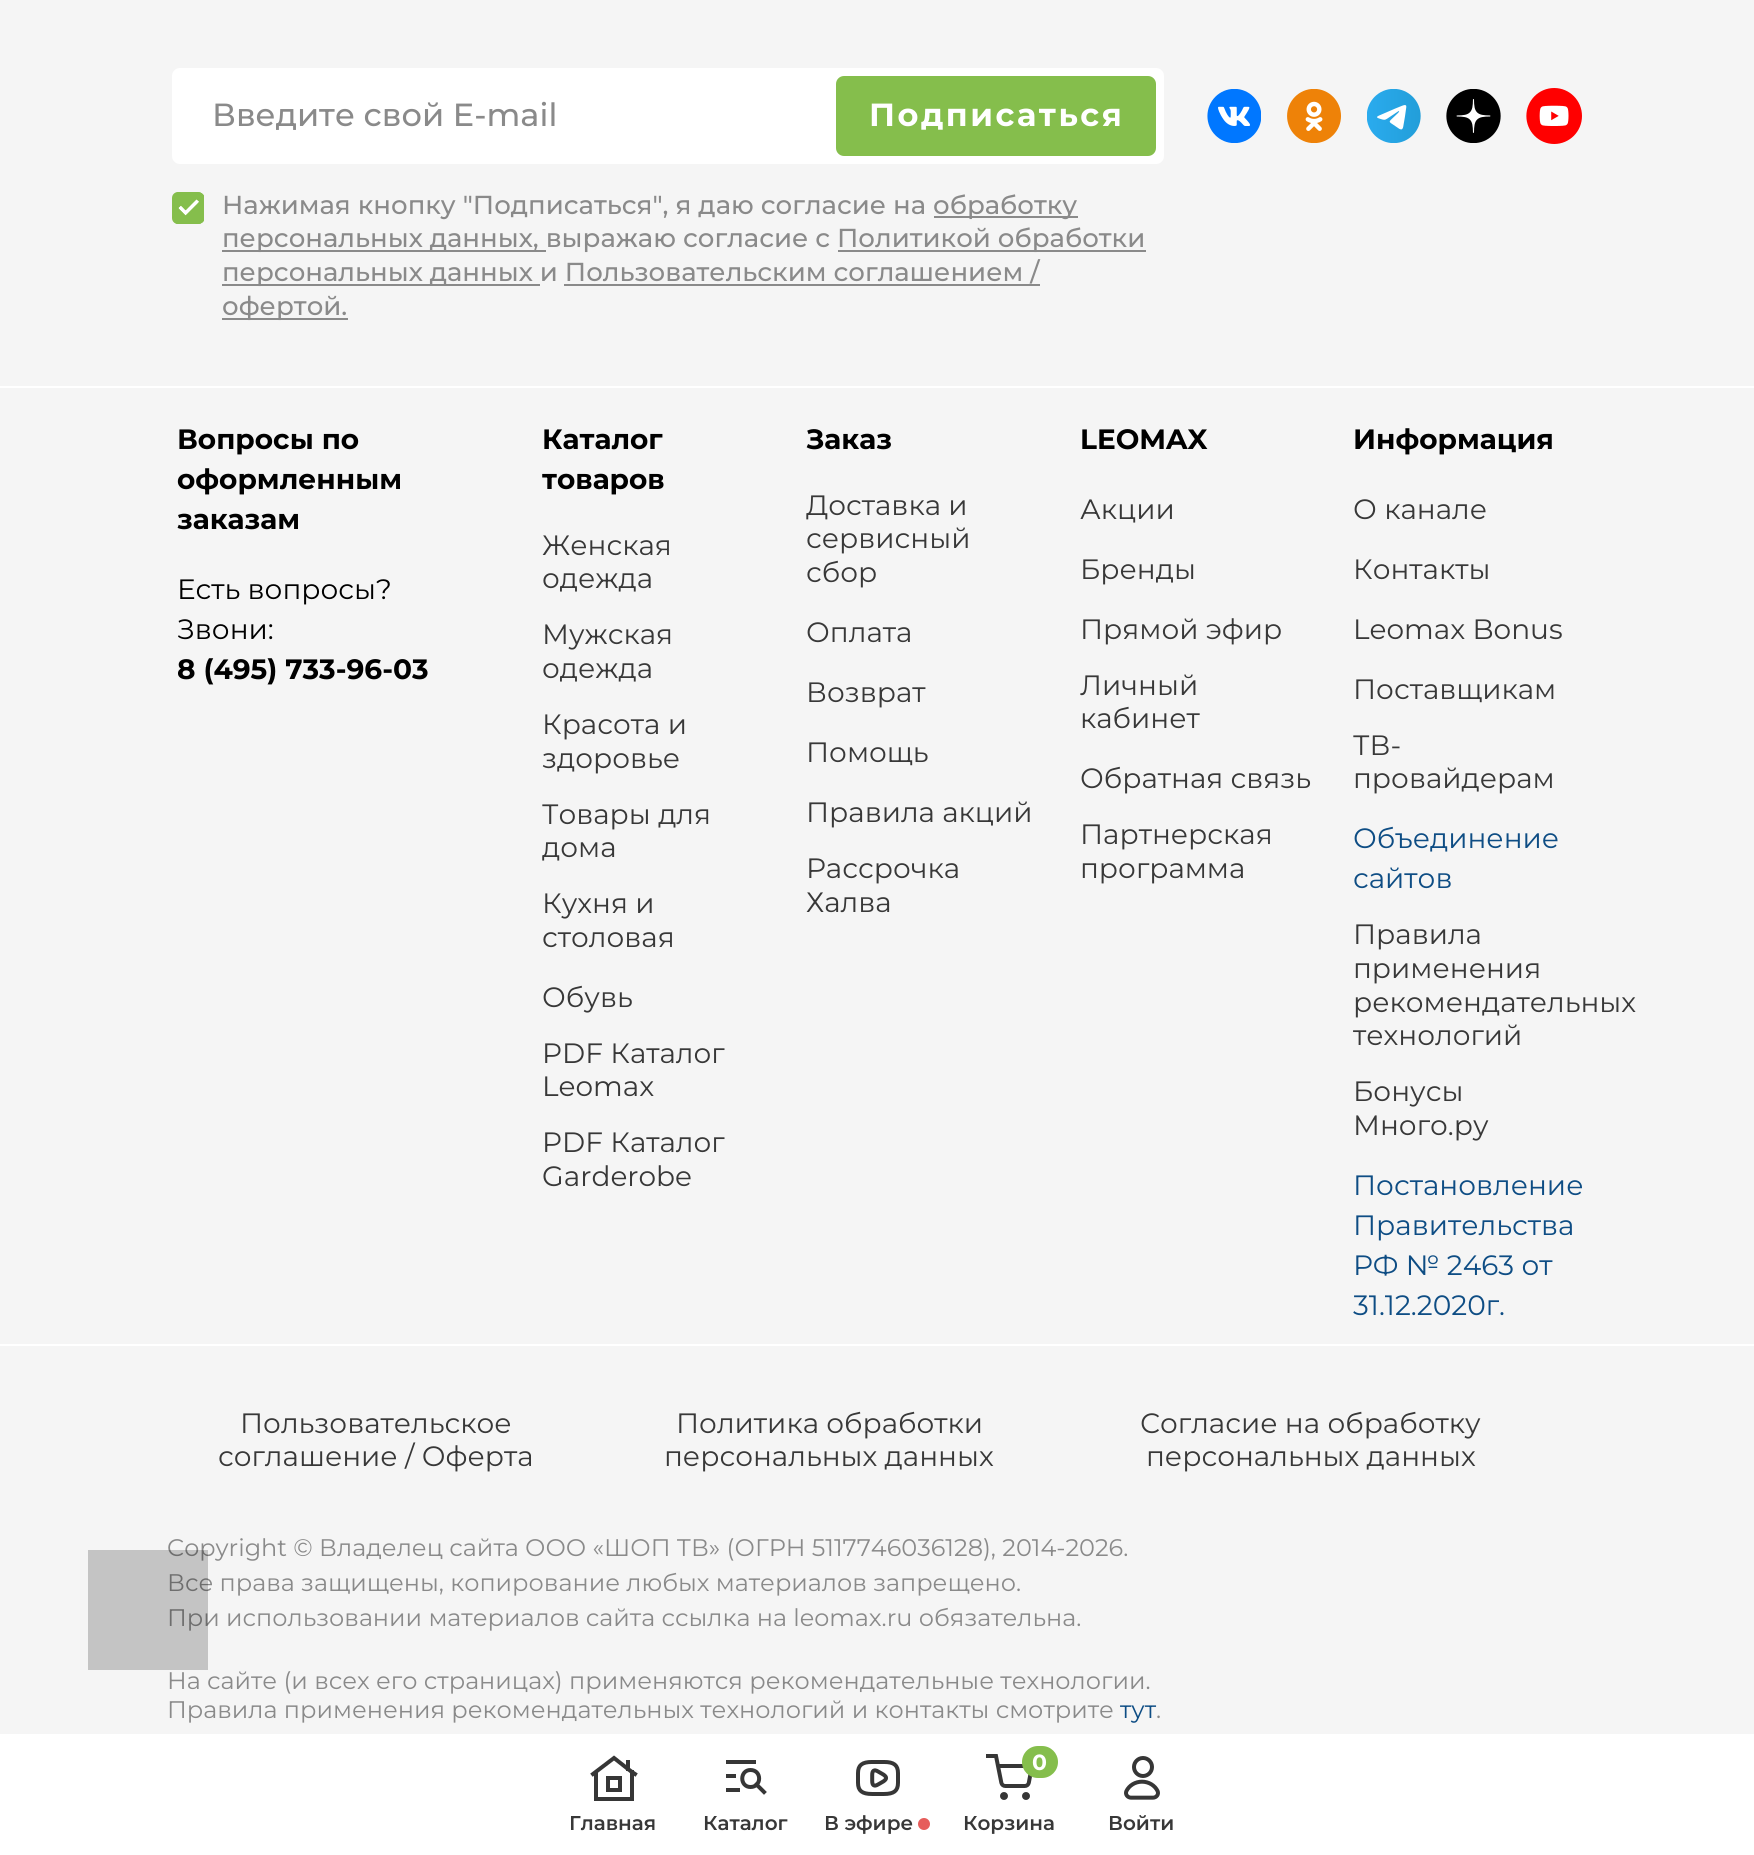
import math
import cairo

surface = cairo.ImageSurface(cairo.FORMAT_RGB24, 1754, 1855)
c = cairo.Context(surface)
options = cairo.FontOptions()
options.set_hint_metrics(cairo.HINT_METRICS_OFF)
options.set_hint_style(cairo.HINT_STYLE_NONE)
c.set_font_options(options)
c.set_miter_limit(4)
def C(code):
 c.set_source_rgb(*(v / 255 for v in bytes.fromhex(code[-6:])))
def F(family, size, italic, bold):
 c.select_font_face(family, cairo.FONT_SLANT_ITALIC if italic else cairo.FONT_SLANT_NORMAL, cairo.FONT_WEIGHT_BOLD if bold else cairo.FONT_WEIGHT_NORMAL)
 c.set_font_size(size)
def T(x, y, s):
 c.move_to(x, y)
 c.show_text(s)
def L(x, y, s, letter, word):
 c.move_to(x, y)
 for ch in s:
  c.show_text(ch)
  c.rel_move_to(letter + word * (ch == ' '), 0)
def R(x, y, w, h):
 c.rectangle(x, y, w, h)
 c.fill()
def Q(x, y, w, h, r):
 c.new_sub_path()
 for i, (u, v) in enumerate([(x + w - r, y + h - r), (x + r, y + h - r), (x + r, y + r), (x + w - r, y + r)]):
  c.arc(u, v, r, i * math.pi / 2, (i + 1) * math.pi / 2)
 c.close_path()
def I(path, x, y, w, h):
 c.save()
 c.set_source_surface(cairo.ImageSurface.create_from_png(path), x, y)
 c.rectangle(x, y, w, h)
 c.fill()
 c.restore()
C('f5f5f5')
c.paint()
F('Montserrat',24,0,0)
C('8a8a8a')
T(167,1556,'Copyright © Владелец сайта ООО «ШОП ТВ» (ОГРН 5117746036128), 2014-2026.')
T(167,1591,'Все права защищены, копирование любых материалов запрещено.')
T(167,1626,'При использовании материалов сайта ссылка на leomax.ru обязательна.')
c.set_source_rgba(0,0,0,0.2)
R(88,1550,120,120)
C('ffffff')
R(0,386,1754,2)
Q(172,68,992,96,8)
c.fill()
F('Montserrat Medium',32,0,0)
C('8a8a8a')
T(212,126,'Введите свой E-mail')
C('85be4c')
Q(836,76,320,80,8)
c.fill()
F('Montserrat',32,0,1)
C('ffffff')
L(869,126,'Подписаться',2.5,0)
Q(173,193,30,30,5)
c.fill_preserve()
C('85be4c')
c.stroke()
I('1.png',173,192,31,32)
F('Montserrat Medium',26,0,0)
C('8a8a8a')
T(222,214,'Нажимая кнопку "Подписаться", я даю согласие на')
R(934,216,144,2)
T(933,214,'обработку')
R(222,250,324,2)
T(222,247,'персональных данных, выражаю согласие с')
R(838,250,308,2)
T(837,247,'Политикой обработки')
R(222,284,318,2)
T(222,281,'персональных данных и Пользовательским соглашением /')
R(222,318,126,2)
T(222,315,'офертой.')
R(564,284,476,2)
I('2.png',1207,89,54,54)
I('3.png',1287,89,54,54)
I('4.png',1367,89,54,54)
I('5.png',1446,89,55,54)
I('6.png',1526,88,56,56)
F('Montserrat',28,0,1)
C('000000')
T(177,449,'Вопросы по')
T(177,489,'оформленным')
T(177,529,'заказам')
F('Montserrat',28,0,0)
T(177,599,'Есть вопросы?')
T(177,639,'Звони:')
F('Montserrat',28,0,1)
T(177,679,'8 (495) 733-96-03')
T(542,449,'Каталог')
T(542,489,'товаров')
F('Montserrat',28,0,0)
C('383838')
T(542,555,'Женская')
T(542,588,'одежда')
T(542,644,'Мужская')
T(542,678,'одежда')
T(542,734,'Красота и')
T(542,768,'здоровье')
T(542,824,'Товары для')
T(542,857,'дома')
T(542,913,'Кухня и')
T(542,947,'столовая')
T(542,1007,'Обувь')
T(542,1063,'PDF Каталог')
T(542,1096,'Leomax')
T(542,1152,'PDF Каталог')
T(542,1186,'Garderobe')
F('Montserrat',28,0,1)
C('000000')
T(806,449,'Заказ')
F('Montserrat',28,0,0)
C('383838')
T(806,515,'Доставка и')
T(806,548,'сервисный')
T(806,582,'сбор')
T(806,642,'Оплата')
T(806,702,'Возврат')
T(806,762,'Помощь')
T(806,822,'Правила акций')
T(806,878,'Рассрочка')
T(806,912,'Халва')
F('Montserrat',28,0,1)
C('000000')
T(1080,449,'LEOMAX')
F('Montserrat',28,0,0)
C('383838')
T(1080,519,'Акции')
T(1080,579,'Бренды')
T(1080,639,'Прямой эфир')
T(1080,695,'Личный')
T(1080,728,'кабинет')
T(1080,788,'Обратная связь')
T(1080,844,'Партнерская')
T(1080,878,'программа')
F('Montserrat',28,0,1)
C('000000')
T(1353,449,'Информация')
F('Montserrat',28,0,0)
C('383838')
T(1353,519,'О канале')
T(1353,579,'Контакты')
T(1353,639,'Leomax Bonus')
T(1353,699,'Поставщикам')
T(1353,755,'ТВ-')
T(1353,788,'провайдерам')
C('0e4d84')
T(1353,848,'Объединение')
T(1353,888,'сайтов')
C('383838')
T(1353,944,'Правила')
T(1353,978,'применения')
T(1353,1012,'рекомендательных')
T(1353,1045,'технологий')
T(1353,1101,'Бонусы')
T(1353,1135,'Много.ру')
C('0e4d84')
T(1353,1195,'Постановление')
T(1353,1235,'Правительства')
T(1353,1275,'РФ № 2463 от')
T(1353,1315,'31.12.2020г.')
C('ffffff')
R(0,1344,1754,2)
C('383838')
T(240,1433,'Пользовательское')
T(218,1466,'соглашение / Оферта')
T(676,1433,'Политика обработки')
T(664,1466,'персональных данных')
T(1140,1433,'Согласие на обработку')
T(1146,1466,'персональных данных')
F('Montserrat',24,0,0)
C('8a8a8a')
T(167,1689,'На сайте (и всех его страницах) применяются рекомендательные технологии.')
T(167,1718,'Правила применения рекомендательных технологий и контакты смотрите')
C('0e4d84')
T(1120,1718,'тут')
C('8a8a8a')
T(1156,1718,'.')
C('ffffff')
R(0,1734,1754,121)
c.new_path()
c.move_to(608,1778)
c.line_to(620,1778)
c.line_to(620,1790)
c.line_to(608,1790)
c.close_path()
C('363636')
c.set_line_width(4)
c.stroke()
c.new_path()
c.move_to(596,1773)
c.line_to(596,1799)
c.line_to(632,1799)
c.line_to(632,1772)
c.move_to(632,1772)
c.line_to(635,1774)
c.move_to(632,1772)
c.line_to(628,1769)
c.move_to(593,1774)
c.line_to(614,1758)
c.line_to(628,1769)
c.move_to(628,1769)
c.line_to(628,1762)
c.set_line_cap(cairo.LINE_CAP_SQUARE)
c.stroke()
F('Montserrat SemiBold',20,0,0)
C('383838')
T(569,1830,'Главная')
c.new_path()
c.move_to(750.5,1787)
c.curve_to(762,1787,762,1770,750.5,1770)
c.curve_to(739.5,1770,739.5,1787,750.5,1787)
c.close_path()
C('363636')
c.set_line_cap(cairo.LINE_CAP_ROUND)
c.set_line_join(cairo.LINE_JOIN_ROUND)
c.stroke()
c.new_path()
c.move_to(764,1792)
c.line_to(756.5,1784.5)
c.set_line_cap(cairo.LINE_CAP_SQUARE)
c.stroke()
c.new_path()
c.move_to(726,1762)
c.line_to(756,1762)
c.move_to(726,1776)
c.line_to(736,1776)
c.move_to(726,1790)
c.line_to(740,1790)
c.set_line_cap(cairo.LINE_CAP_BUTT)
c.set_line_join(cairo.LINE_JOIN_MITER)
c.stroke()
C('383838')
T(703,1830,'Каталог')
I('7.png',856,1760,44,36)
T(824,1830,'В эфире')
C('e65d5b')
c.new_path()
c.arc(924,1824,6,0,2 * math.pi)
c.fill()
I('8.png',986,1754,47,46)
C('85be4c')
Q(1022,1746,36,32,16)
c.fill()
F('Montserrat',22,0,1)
C('ffffff')
T(1032,1770,'0')
F('Montserrat SemiBold',20,0,0)
C('383838')
T(963,1830,'Корзина')
I('9.png',1124,1756,36,44)
T(1108,1830,'Войти')
surface.write_to_png('o.png')
